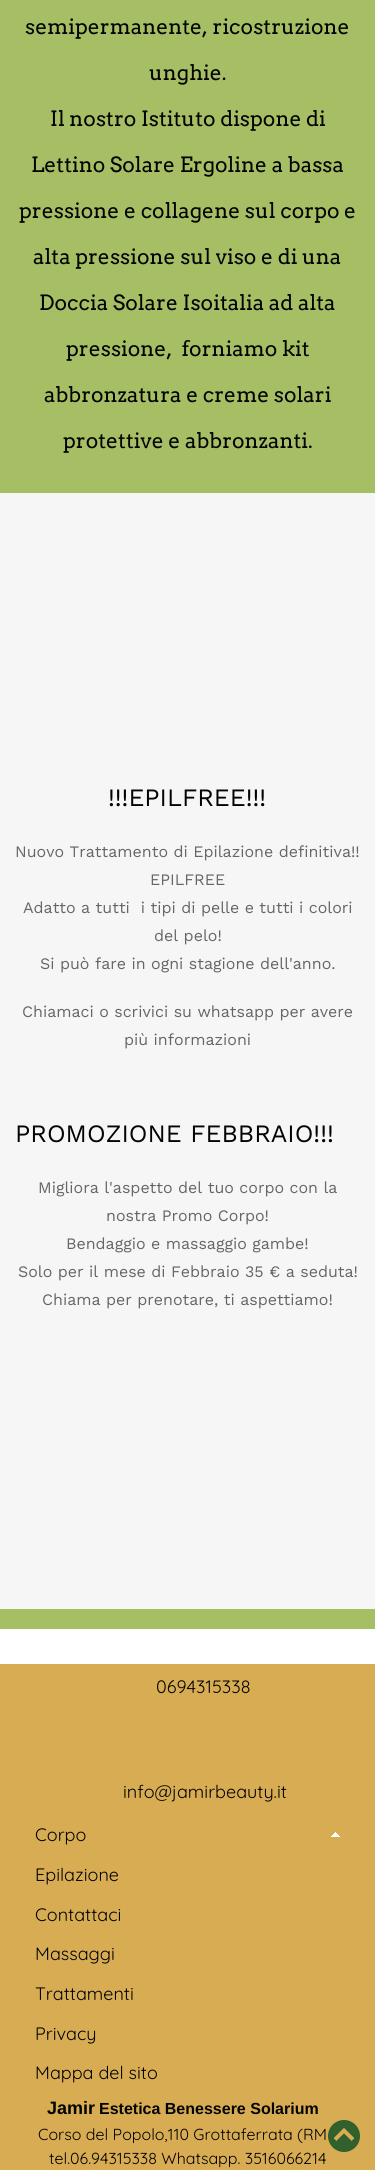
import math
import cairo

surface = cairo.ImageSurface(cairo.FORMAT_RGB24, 375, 2170)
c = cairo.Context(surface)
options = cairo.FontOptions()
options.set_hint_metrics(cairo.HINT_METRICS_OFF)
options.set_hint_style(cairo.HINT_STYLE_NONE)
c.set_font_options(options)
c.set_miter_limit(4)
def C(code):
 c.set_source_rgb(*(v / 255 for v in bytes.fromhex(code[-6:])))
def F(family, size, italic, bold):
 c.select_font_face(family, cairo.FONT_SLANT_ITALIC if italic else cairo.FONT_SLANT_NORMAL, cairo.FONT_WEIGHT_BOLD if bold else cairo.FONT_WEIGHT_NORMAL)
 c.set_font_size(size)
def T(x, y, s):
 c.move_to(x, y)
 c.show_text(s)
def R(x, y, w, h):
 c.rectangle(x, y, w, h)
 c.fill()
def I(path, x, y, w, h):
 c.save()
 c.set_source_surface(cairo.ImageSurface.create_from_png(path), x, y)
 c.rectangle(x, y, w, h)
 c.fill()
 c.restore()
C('a6bf64')
c.paint()
C('ffffff')
R(0,1629,375,35)
F('Arvo',21,0,0)
C('030303')
T(25,34,'semipermanente, ricostruzione')
T(149,80,'unghie.')
T(50,126,'Il nostro Istituto dispone di')
T(31,172,'Lettino Solare Ergoline a bassa')
T(19,218,'pressione e collagene sul corpo e')
T(33,264,'alta pressione sul viso e di una')
T(39,310,'Doccia Solare Isoitalia ad alta')
T(66,356,'pressione,  forniamo kit')
T(44,402,'abbronzatura e creme solari')
T(63,448,'protettive e abbronzanti.')
C('f6f6f6')
R(0,493,375,1116)
F('Work Sans',25,0,0)
C('030303')
T(108,806,'!!!EPILFREE!!!')
F('Work Sans',16,0,0)
C('666666')
T(15,857,'Nuovo Trattamento di Epilazione definitiva!!')
T(150,885,'EPILFREE')
T(23,913,'Adatto a tutti  i tipi di pelle e tutti i colori')
T(154,941,'del pelo!')
T(40,969,'Si può fare in ogni stagione dell\'anno.')
T(22,1017,'Chiamaci o scrivici su whatsapp per avere')
T(124,1045,'più informazioni')
F('Work Sans',25,0,0)
C('030303')
T(15,1142,'PROMOZIONE FEBBRAIO!!!')
F('Work Sans',16,0,0)
C('666666')
T(38,1193,'Migliora l\'aspetto del tuo corpo con la')
T(106,1221,'nostra Promo Corpo!')
T(66,1249,'Bendaggio e massaggio gambe!')
T(18,1277,'Solo per il mese di Febbraio 35 € a seduta!')
T(42,1305,'Chiama per prenotare, ti aspettiamo!')
C('d8ac53')
R(0,1664,375,506)
F('Quicksand Light',18,0,0)
C('030303')
T(156,1693,'0694315338')
T(123,1798,'info@jamirbeauty.it')
T(35,1841,'Corpo')
I('1.png',331,1832,9,5)
T(35,1881,'Epilazione')
T(35,1921,'Contattaci')
T(35,1960,'Massaggi')
T(35,2000,'Trattamenti')
T(35,2040,'Privacy')
T(35,2079,'Mappa del sito')
F('Liberation Sans',18,0,1)
T(47,2114,'Jamir')
F('Liberation Sans',16,0,1)
T(99,2114,'Estetica Benessere Solarium')
F('Quicksand Light',16,0,0)
T(38,2140,'Corso del Popolo,110 Grottaferrata (RM')
T(49,2164,'tel.06.94315338 Whatsapp. 3516066214')
I('2.png',328,2120,32,32)
surface.write_to_png('o.png')
